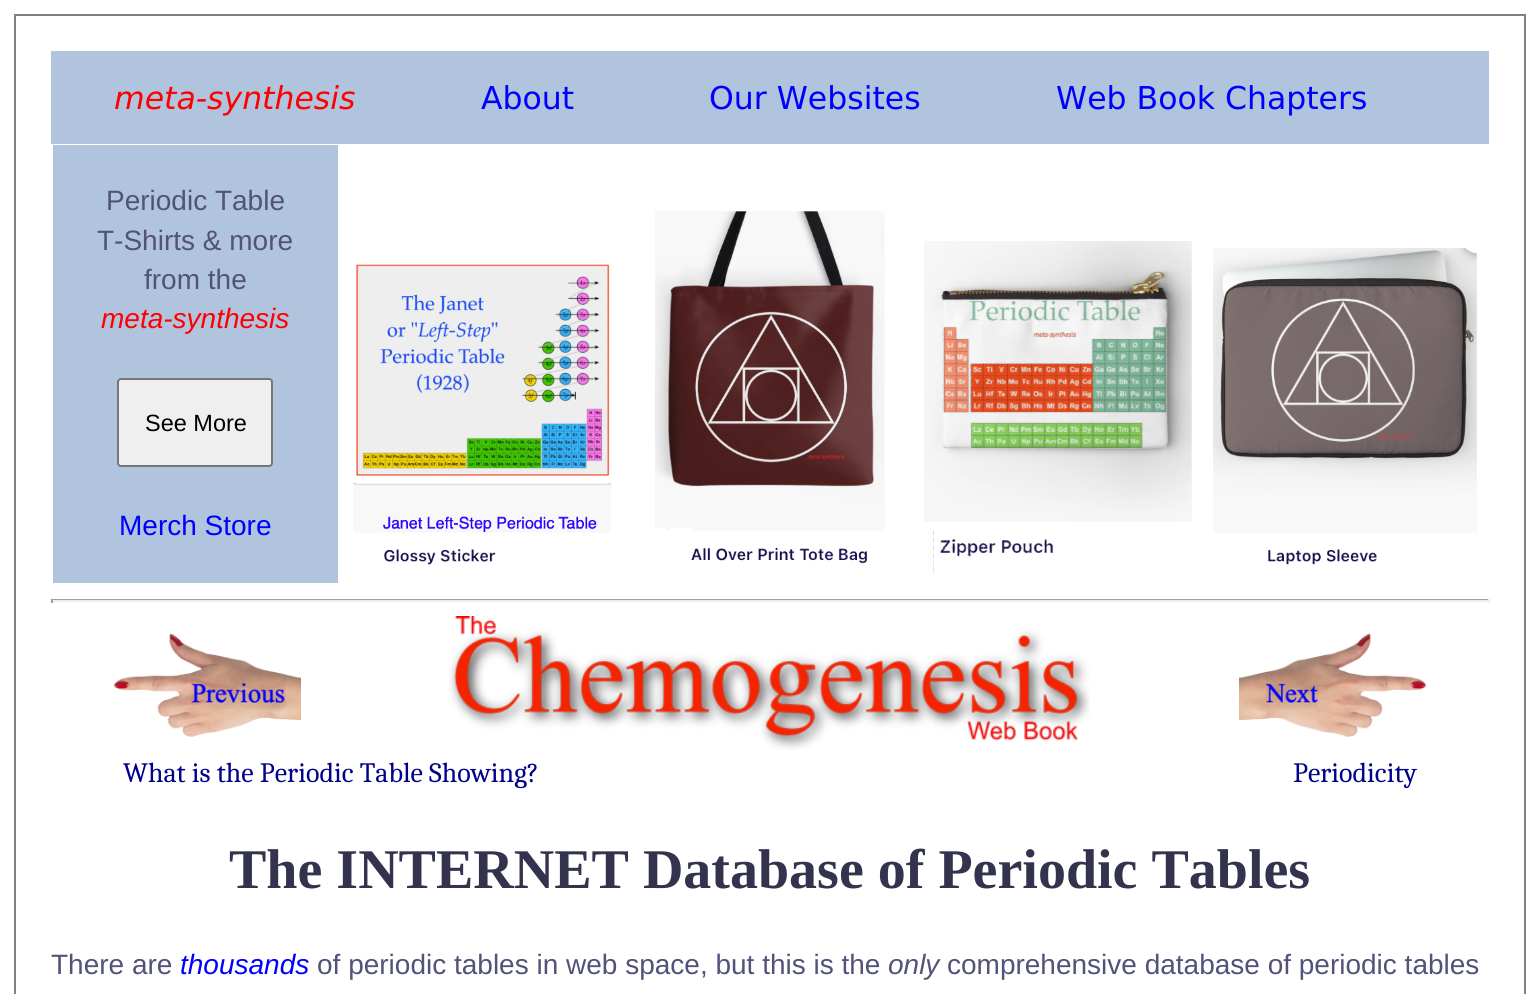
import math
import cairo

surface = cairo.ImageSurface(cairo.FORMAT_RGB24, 1539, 994)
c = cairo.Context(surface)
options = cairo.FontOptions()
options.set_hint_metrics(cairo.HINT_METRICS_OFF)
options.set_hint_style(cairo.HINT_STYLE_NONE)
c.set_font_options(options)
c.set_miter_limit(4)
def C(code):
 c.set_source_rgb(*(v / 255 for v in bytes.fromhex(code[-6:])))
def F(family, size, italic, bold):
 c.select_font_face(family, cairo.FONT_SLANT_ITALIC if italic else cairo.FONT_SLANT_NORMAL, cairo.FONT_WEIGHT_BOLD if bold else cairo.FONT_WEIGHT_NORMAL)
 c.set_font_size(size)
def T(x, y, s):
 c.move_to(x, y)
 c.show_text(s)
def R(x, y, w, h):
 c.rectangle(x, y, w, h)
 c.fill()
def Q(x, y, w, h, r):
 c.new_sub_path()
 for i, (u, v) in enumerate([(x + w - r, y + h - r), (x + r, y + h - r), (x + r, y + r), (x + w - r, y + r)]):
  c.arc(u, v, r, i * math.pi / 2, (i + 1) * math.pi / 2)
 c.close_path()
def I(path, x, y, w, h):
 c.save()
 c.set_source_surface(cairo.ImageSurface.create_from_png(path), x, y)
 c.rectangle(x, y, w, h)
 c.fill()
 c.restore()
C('ffffff')
c.paint()
c.rectangle(15,15,1510,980)
C('808080')
c.stroke()
C('b0c4de')
R(51,51,1438,93)
F('DejaVu Sans',31.5,1,0)
C('ff0000')
T(114,109,'meta-synthesis')
F('DejaVu Sans',31.5,0,0)
C('0000ff')
T(481,109,'About')
T(709,109,'Our Websites')
T(1056,109,'Web Book Chapters')
C('b0c4de')
R(53,145,285,438)
F('Liberation Sans',28,0,0)
C('52527a')
T(106,210,'Periodic Table')
T(97,250,'T-Shirts & more')
T(144,289,'from the')
F('Liberation Sans',28,1,0)
C('ff0000')
T(101,328,'meta-synthesis')
C('efefef')
Q(118,379,154,87,3)
c.fill_preserve()
C('767676')
c.stroke()
F('Liberation Sans',23.5,0,0)
C('000000')
T(145,431,'See More')
F('Liberation Sans',28,0,0)
C('0000ff')
T(119,535,'Merch Store')
I('1.png',353,263,259,302)
I('2.png',655,211,230,353)
I('3.png',924,241,268,333)
I('4.png',1213,248,264,317)
C('9f9f9f')
R(51,599,1438,1)
C('eeeeee')
R(1488,599,2,4)
R(51,600,1438,2)
C('9f9f9f')
R(51,599,2,4)
I('5.png',113,633,188,104)
I('6.png',449,616,641,134)
I('7.png',1239,633,188,104)
F('Caladea',28,0,0)
C('00008b')
T(123,782,'What is the Periodic Table Showing?')
T(1293,782,'Periodicity')
F('Liberation Serif',56,0,1)
C('33334d')
T(229,888,'The INTERNET Database of Periodic Tables')
F('Liberation Sans',28,0,0)
C('52527a')
T(51,974,'There are')
F('Liberation Sans',28,1,0)
C('0000ff')
T(180,974,'thousands')
F('Liberation Sans',28,0,0)
C('52527a')
T(317,974,'of periodic tables in web space, but this is the')
F('Liberation Sans',28,1,0)
T(888,974,'only')
F('Liberation Sans',28,0,0)
T(947,974,'comprehensive database of periodic tables')
surface.write_to_png('o.png')
